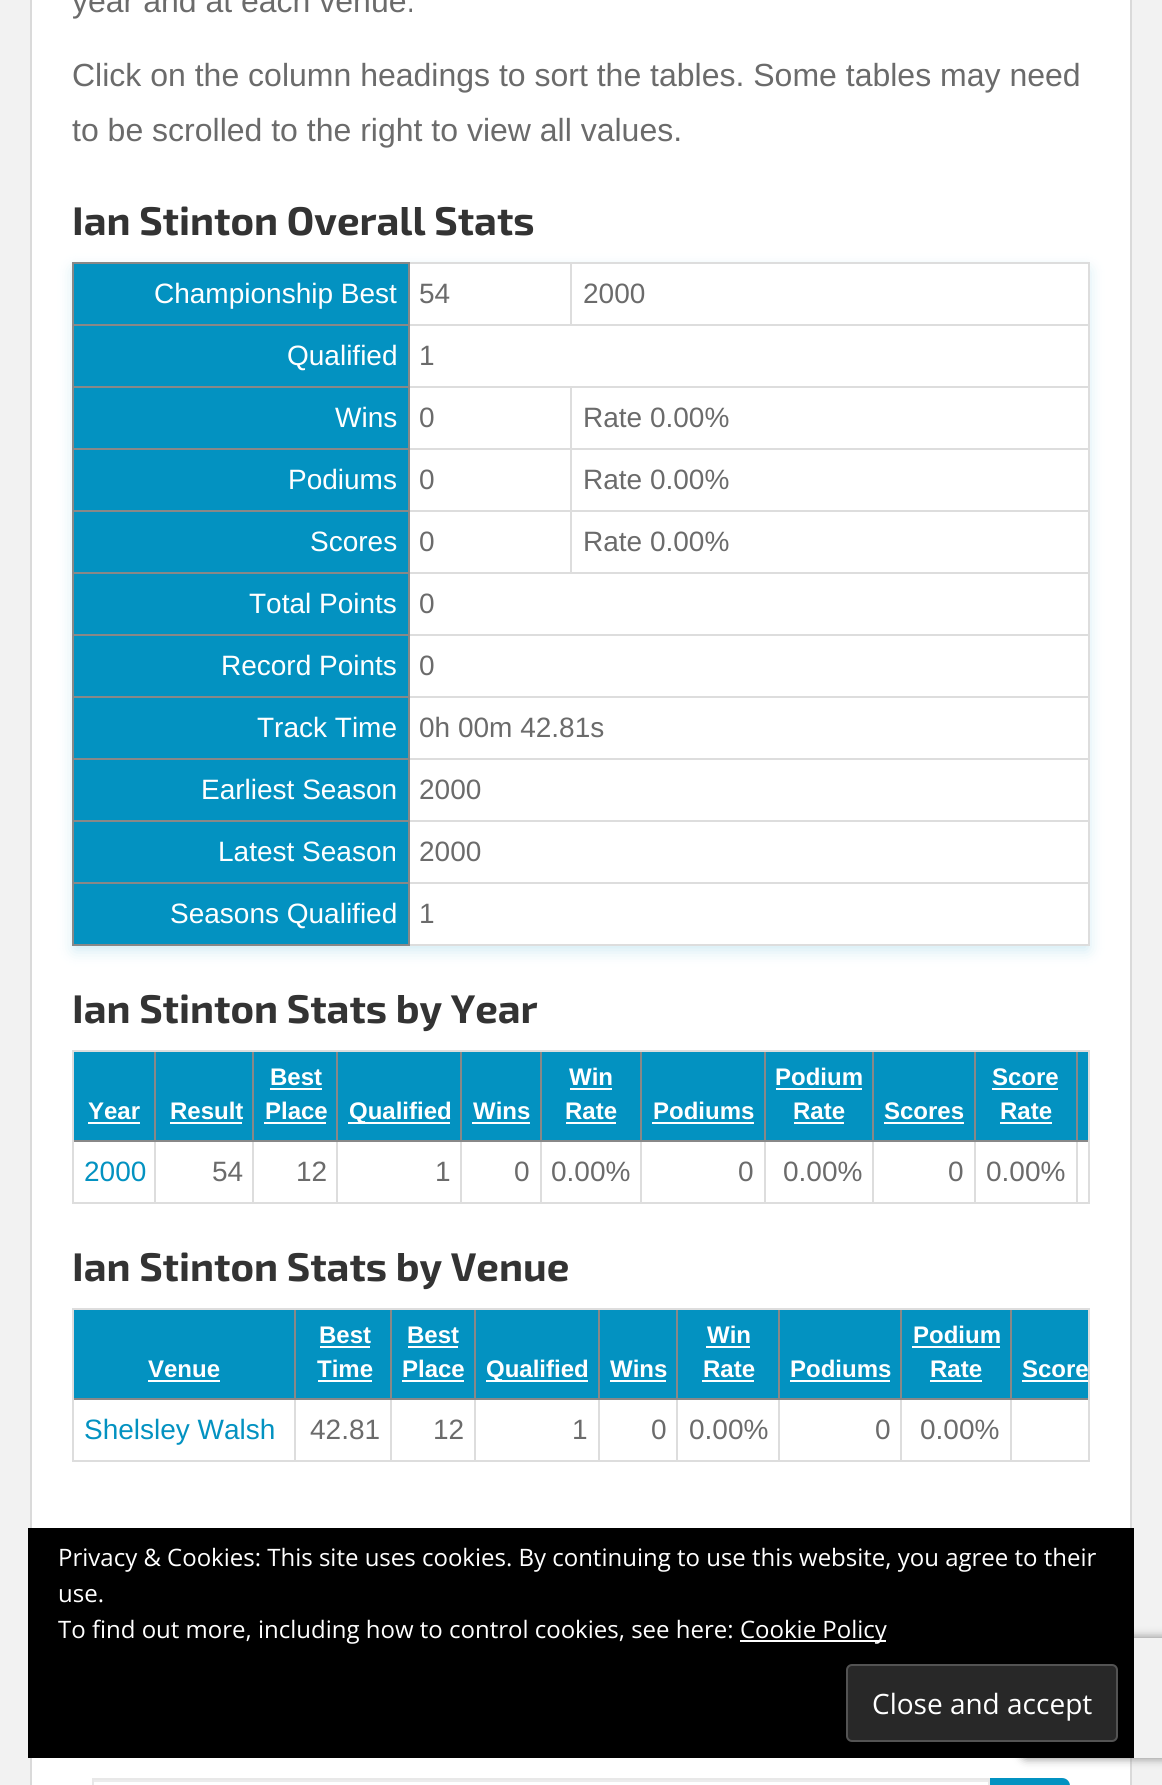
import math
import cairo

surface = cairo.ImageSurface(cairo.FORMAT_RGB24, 1162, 1785)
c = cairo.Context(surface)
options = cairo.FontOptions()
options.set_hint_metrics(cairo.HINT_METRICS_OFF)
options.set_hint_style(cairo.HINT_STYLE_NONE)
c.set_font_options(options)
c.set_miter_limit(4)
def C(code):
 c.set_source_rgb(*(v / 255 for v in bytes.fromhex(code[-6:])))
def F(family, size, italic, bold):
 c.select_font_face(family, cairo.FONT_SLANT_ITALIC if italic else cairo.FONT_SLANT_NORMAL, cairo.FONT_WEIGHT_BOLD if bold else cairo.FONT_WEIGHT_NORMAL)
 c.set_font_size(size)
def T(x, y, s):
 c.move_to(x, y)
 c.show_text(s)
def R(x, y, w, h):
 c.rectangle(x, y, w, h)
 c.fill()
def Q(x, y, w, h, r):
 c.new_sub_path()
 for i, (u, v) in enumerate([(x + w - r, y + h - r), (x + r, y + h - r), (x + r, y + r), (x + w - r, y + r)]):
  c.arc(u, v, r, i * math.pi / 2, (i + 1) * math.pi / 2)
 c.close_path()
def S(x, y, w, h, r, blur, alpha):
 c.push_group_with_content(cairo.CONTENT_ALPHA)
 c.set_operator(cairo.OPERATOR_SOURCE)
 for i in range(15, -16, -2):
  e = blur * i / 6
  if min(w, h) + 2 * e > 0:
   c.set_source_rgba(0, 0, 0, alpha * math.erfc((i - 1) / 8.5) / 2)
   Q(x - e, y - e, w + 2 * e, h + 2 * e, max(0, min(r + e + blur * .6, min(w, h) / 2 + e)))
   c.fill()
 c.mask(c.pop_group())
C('f2f2f2')
c.paint()
C('ffffff')
R(32,0,1098,1528)
c.rectangle(31,-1,1100,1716)
C('dadada')
c.stroke()
F('Liberation Sans',32,0,0)
C('6b6b6b')
T(72,12,'year and at each venue.')
T(72,86,'Click on the column headings to sort the tables. Some tables may need')
T(72,141,'to be scrolled to the right to view all values.')
F('Exo 2',40,0,1)
C('333333')
T(72,235,'Ian Stinton Overall Stats')
c.save()
c.set_fill_rule(cairo.FILL_RULE_EVEN_ODD)
c.new_path()
c.move_to(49,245)
c.line_to(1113,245)
c.line_to(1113,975)
c.line_to(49,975)
c.close_path()
c.move_to(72,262)
c.line_to(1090,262)
c.line_to(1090,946)
c.line_to(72,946)
c.close_path()
c.clip()
C('0392c1')
S(74,270,1014,680,0,8,.2)
c.restore()
C('dddddd')
R(410,262,680,2)
R(1088,262,2,684)
R(410,944,680,2)
C('0392c1')
R(74,264,334,60)
C('888888')
R(72,262,338,2)
C('dddddd')
R(570,262,2,64)
C('888888')
R(72,324,338,2)
R(72,386,338,2)
R(72,448,338,2)
C('dddddd')
R(570,448,520,2)
R(570,510,520,2)
R(570,510,2,64)
R(570,386,2,126)
C('888888')
R(72,510,338,2)
R(72,572,338,2)
R(72,634,338,2)
R(72,696,338,2)
R(72,758,338,2)
R(72,820,338,2)
R(72,882,338,2)
R(408,882,2,64)
C('dddddd')
R(408,882,682,2)
C('888888')
R(408,820,2,64)
C('dddddd')
R(408,820,682,2)
C('888888')
R(408,758,2,64)
C('dddddd')
R(408,758,682,2)
C('888888')
R(408,696,2,64)
C('dddddd')
R(408,696,682,2)
C('888888')
R(408,634,2,64)
C('dddddd')
R(408,634,682,2)
C('888888')
R(408,572,2,64)
C('dddddd')
R(408,572,164,2)
C('888888')
R(408,510,2,64)
C('dddddd')
R(408,510,164,2)
C('888888')
R(408,448,2,64)
C('dddddd')
R(408,448,164,2)
C('888888')
R(408,386,2,64)
C('dddddd')
R(408,386,682,2)
C('888888')
R(408,324,2,64)
C('dddddd')
R(408,324,164,2)
C('888888')
R(408,262,2,64)
R(72,944,338,2)
R(72,882,2,64)
R(72,820,2,64)
R(72,758,2,64)
R(72,696,2,64)
R(72,634,2,64)
R(72,572,2,64)
R(72,510,2,64)
R(72,448,2,64)
R(72,386,2,64)
R(72,324,2,64)
R(72,262,2,64)
F('Liberation Sans',28,0,0)
C('ffffff')
T(154,303,'Championship Best')
C('6b6b6b')
T(419,303,'54')
T(583,303,'2000')
C('0392c1')
R(74,326,334,60)
C('ffffff')
T(287,365,'Qualified')
C('dddddd')
R(572,324,518,2)
C('6b6b6b')
T(419,365,'1')
C('0392c1')
R(74,388,334,60)
C('ffffff')
T(335,427,'Wins')
C('6b6b6b')
T(419,427,'0')
T(583,427,'Rate 0.00%')
C('0392c1')
R(74,450,334,60)
C('ffffff')
T(288,489,'Podiums')
C('6b6b6b')
T(419,489,'0')
T(583,489,'Rate 0.00%')
C('0392c1')
R(74,512,334,60)
C('ffffff')
T(310,551,'Scores')
C('6b6b6b')
T(419,551,'0')
T(583,551,'Rate 0.00%')
C('0392c1')
R(74,574,334,60)
C('ffffff')
T(249,613,'Total Points')
C('dddddd')
R(572,572,518,2)
C('6b6b6b')
T(419,613,'0')
C('0392c1')
R(74,636,334,60)
C('ffffff')
T(221,675,'Record Points')
C('6b6b6b')
T(419,675,'0')
C('0392c1')
R(74,698,334,60)
C('ffffff')
T(257,737,'Track Time')
C('6b6b6b')
T(419,737,'0h 00m 42.81s')
C('0392c1')
R(74,760,334,60)
C('ffffff')
T(201,799,'Earliest Season')
C('6b6b6b')
T(419,799,'2000')
C('0392c1')
R(74,822,334,60)
C('ffffff')
T(218,861,'Latest Season')
C('6b6b6b')
T(419,861,'2000')
C('0392c1')
R(74,884,334,60)
C('ffffff')
T(170,923,'Seasons Qualified')
C('6b6b6b')
T(419,923,'1')
F('Exo 2',40,0,1)
C('333333')
T(72,1023,'Ian Stinton Stats by Year')
c.rectangle(73,1051,1016,152)
C('dddddd')
c.stroke()
C('0392c1')
R(156,1052,932,88)
R(74,1052,80,88)
C('888888')
R(154,1052,2,90)
R(72,1140,84,2)
C('dddddd')
R(72,1140,2,2)
F('Liberation Sans',24,0,1)
C('ffffff')
T(88,1119,'Year')
R(88,1122,52,2)
C('dddddd')
R(1076,1140,2,62)
C('888888')
R(1076,1140,12,2)
R(1076,1052,2,90)
C('dddddd')
R(974,1140,2,62)
C('888888')
R(974,1140,104,2)
R(974,1052,2,90)
C('dddddd')
R(872,1140,2,62)
C('888888')
R(872,1140,104,2)
R(872,1052,2,90)
C('dddddd')
R(764,1140,2,62)
C('888888')
R(764,1140,110,2)
R(764,1052,2,90)
C('dddddd')
R(640,1140,2,62)
C('888888')
R(640,1140,126,2)
R(640,1052,2,90)
C('dddddd')
R(540,1140,2,62)
C('888888')
R(540,1140,102,2)
R(540,1052,2,90)
C('dddddd')
R(460,1140,2,62)
C('888888')
R(460,1140,82,2)
R(460,1052,2,90)
C('dddddd')
R(336,1140,2,62)
C('888888')
R(336,1140,126,2)
R(336,1052,2,90)
C('dddddd')
R(252,1140,2,62)
C('888888')
R(252,1140,86,2)
R(252,1052,2,90)
R(156,1140,98,2)
C('ffffff')
T(170,1119,'Result')
R(170,1122,72,2)
T(270,1085,'Best')
R(270,1088,52,2)
T(265,1119,'Place')
R(264,1122,62,2)
R(348,1122,102,2)
T(349,1119,'Qualified')
T(473,1119,'Wins')
R(472,1122,58,2)
T(569,1085,'Win')
R(570,1088,42,2)
T(565,1119,'Rate')
R(566,1122,50,2)
T(653,1119,'Podiums')
R(652,1122,102,2)
T(775,1085,'Podium')
R(776,1088,86,2)
T(793,1119,'Rate')
R(794,1122,50,2)
T(884,1119,'Scores')
R(884,1122,80,2)
T(992,1085,'Score')
R(992,1088,66,2)
T(1000,1119,'Rate')
R(1000,1122,52,2)
C('dddddd')
R(154,1142,2,60)
F('Liberation Sans',28,0,0)
C('0392c1')
T(84,1181,'2000')
C('6b6b6b')
T(212,1181,'54')
T(296,1181,'12')
T(435,1181,'1')
T(514,1181,'0')
T(551,1181,'0.00%')
T(738,1181,'0')
T(783,1181,'0.00%')
T(948,1181,'0')
T(986,1181,'0.00%')
F('Exo 2',40,0,1)
C('333333')
T(72,1281,'Ian Stinton Stats by Venue')
c.rectangle(73,1309,1016,152)
C('dddddd')
c.stroke()
C('0392c1')
R(296,1310,792,88)
R(74,1310,220,88)
C('888888')
R(294,1310,2,90)
R(72,1398,224,2)
C('dddddd')
R(72,1398,2,2)
F('Liberation Sans',24,0,1)
C('ffffff')
T(148,1377,'Venue')
R(148,1380,72,2)
C('dddddd')
R(1010,1398,2,62)
C('888888')
R(1010,1398,78,2)
R(1010,1310,2,90)
C('dddddd')
R(900,1398,2,62)
C('888888')
R(900,1398,112,2)
R(900,1310,2,90)
C('dddddd')
R(778,1398,2,62)
C('888888')
R(778,1398,124,2)
R(778,1310,2,90)
C('dddddd')
R(676,1398,2,62)
C('888888')
R(676,1398,104,2)
R(676,1310,2,90)
C('dddddd')
R(598,1398,2,62)
C('888888')
R(598,1398,80,2)
R(598,1310,2,90)
C('dddddd')
R(474,1398,2,62)
C('888888')
R(474,1398,126,2)
R(474,1310,2,90)
C('dddddd')
R(390,1398,2,62)
C('888888')
R(390,1398,86,2)
R(390,1310,2,90)
R(296,1398,96,2)
C('ffffff')
T(319,1343,'Best')
R(320,1346,50,2)
T(317,1377,'Time')
R(318,1380,54,2)
T(407,1343,'Best')
R(408,1346,50,2)
T(402,1377,'Place')
R(402,1380,62,2)
R(486,1380,102,2)
T(486,1377,'Qualified')
T(610,1377,'Wins')
R(610,1380,56,2)
T(707,1343,'Win')
R(706,1346,44,2)
T(703,1377,'Rate')
R(702,1380,52,2)
T(790,1377,'Podiums')
R(790,1380,100,2)
T(913,1343,'Podium')
R(912,1346,88,2)
T(930,1377,'Rate')
R(930,1380,52,2)
T(1022,1377,'Score')
R(1022,1380,66,2)
C('dddddd')
R(294,1400,2,60)
F('Liberation Sans',28,0,0)
C('0392c1')
T(84,1439,'Shelsley Walsh')
C('6b6b6b')
T(310,1439,'42.81')
T(433,1439,'12')
T(572,1439,'1')
T(651,1439,'0')
T(689,1439,'0.00%')
T(875,1439,'0')
T(920,1439,'0.00%')
C('ffffff')
R(32,1758,1098,27)
c.rectangle(31,1717,1100,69)
C('dadada')
c.stroke()
C('ececec')
R(94,1780,894,2)
c.rectangle(93,1779,896,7)
C('e8e8e8')
c.stroke()
C('0392c1')
c.new_path()
c.move_to(991,1779)
c.line_to(1062,1779)
c.curve_to(1066,1779,1069,1782,1069,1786)
c.line_to(1069,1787)
c.curve_to(1069,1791,1066,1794,1062,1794)
c.line_to(991,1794)
c.close_path()
c.fill_preserve()
c.stroke()
c.save()
c.set_fill_rule(cairo.FILL_RULE_EVEN_ODD)
c.new_path()
c.move_to(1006,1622)
c.line_to(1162,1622)
c.line_to(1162,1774)
c.line_to(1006,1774)
c.close_path()
c.move_to(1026,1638)
c.line_to(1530,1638)
c.curve_to(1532,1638,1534,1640,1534,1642)
c.line_to(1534,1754)
c.curve_to(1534,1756,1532,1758,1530,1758)
c.line_to(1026,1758)
c.curve_to(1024,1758,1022,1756,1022,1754)
c.line_to(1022,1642)
c.curve_to(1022,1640,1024,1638,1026,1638)
c.close_path()
c.clip()
C('808080')
S(1022,1638,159,120,4,5,1)
c.restore()
C('000000')
R(28,1528,1106,230)
F('Open Sans',24,0,0)
C('ffffff')
T(58,1566,'Privacy & Cookies: This site uses cookies. By continuing to use this website, you agree to their')
T(58,1602,'use.')
T(58,1638,'To find out more, including how to control cookies, see here:')
R(740,1640,146,2)
T(740,1638,'Cookie Policy')
C('282828')
Q(847,1665,270,76,5)
c.fill_preserve()
C('535353')
c.stroke()
F('Open Sans',28,0,0)
C('ffffff')
T(872,1714,'Close and accept')
surface.write_to_png('o.png')
